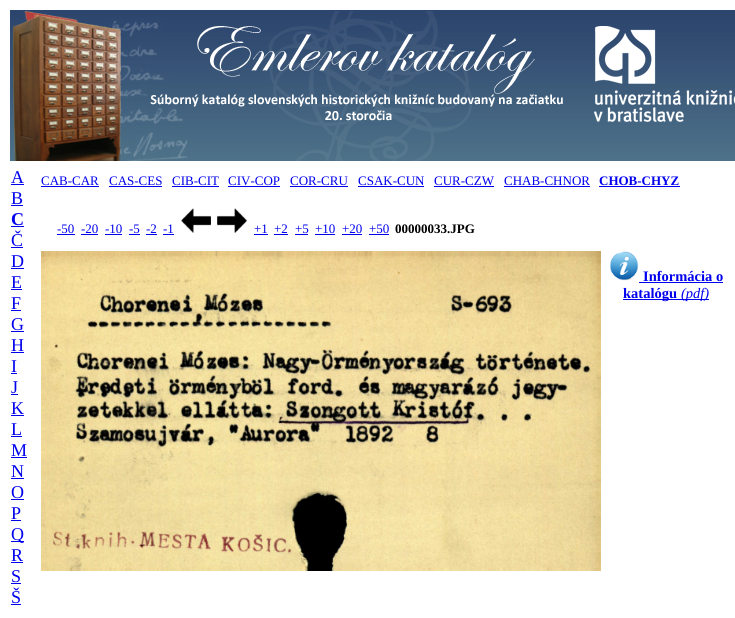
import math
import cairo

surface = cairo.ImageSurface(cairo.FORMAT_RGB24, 735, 618)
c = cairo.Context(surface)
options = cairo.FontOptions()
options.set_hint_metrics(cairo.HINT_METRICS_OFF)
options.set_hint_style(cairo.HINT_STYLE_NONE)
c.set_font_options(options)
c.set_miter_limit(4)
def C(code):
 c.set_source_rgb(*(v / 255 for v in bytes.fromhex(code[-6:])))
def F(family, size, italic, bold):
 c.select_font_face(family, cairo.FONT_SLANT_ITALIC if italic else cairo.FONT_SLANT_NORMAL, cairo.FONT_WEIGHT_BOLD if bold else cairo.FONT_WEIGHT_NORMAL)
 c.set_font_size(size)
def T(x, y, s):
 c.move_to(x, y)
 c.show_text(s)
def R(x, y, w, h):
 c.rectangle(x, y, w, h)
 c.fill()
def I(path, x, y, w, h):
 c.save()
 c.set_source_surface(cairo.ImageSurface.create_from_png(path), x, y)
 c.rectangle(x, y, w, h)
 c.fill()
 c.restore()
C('ffffff')
c.paint()
I('1.png',10,10,725,151)
I('2.png',12,11,723,150)
F('Liberation Serif',18,0,0)
C('0000ee')
T(11,183,'A')
R(11,184,13,1)
T(11,204,'B')
R(11,205,12,1)
F('Liberation Serif',18,0,1)
T(11,225,'C')
R(11,226,13,1)
F('Liberation Serif',18,0,0)
T(11,246,'Č')
R(11,247,12,1)
T(11,267,'D')
R(11,268,13,1)
T(11,288,'E')
R(11,289,11,1)
T(11,309,'F')
R(11,310,10,1)
T(11,330,'G')
R(11,331,13,1)
T(11,351,'H')
R(11,352,13,1)
T(11,372,'I')
R(11,373,6,1)
T(11,393,'J')
R(11,394,7,1)
T(11,414,'K')
R(11,415,13,1)
T(11,435,'L')
R(11,436,11,1)
T(11,456,'M')
R(11,457,16,1)
T(11,477,'N')
R(11,478,13,1)
T(11,498,'O')
R(11,499,13,1)
T(11,519,'P')
R(11,520,10,1)
R(11,541,13,1)
T(11,540,'Q')
T(11,561,'R')
R(11,562,12,1)
T(11,582,'S')
R(11,583,10,1)
T(11,603,'Š')
R(11,604,10,1)
F('Liberation Serif',13,0,0)
T(41,185,'CAB-CAR')
R(41,186,58,1)
T(109,185,'CAS-CES')
R(109,186,53,1)
T(172,185,'CIB-CIT')
R(172,186,47,1)
T(228,185,'CIV-COP')
R(228,186,52,1)
T(290,185,'COR-CRU')
R(290,186,58,1)
T(358,185,'CSAK-CUN')
R(358,186,66,1)
T(434,185,'CUR-CZW')
R(434,186,60,1)
T(504,185,'CHAB-CHNOR')
R(504,186,86,1)
F('Liberation Serif',13,0,1)
T(599,185,'CHOB-CHYZ')
R(599,186,81,1)
F('Liberation Serif',13,0,0)
T(57,233,'-50')
R(57,234,18,1)
T(81,233,'-20')
R(81,234,17,1)
T(105,233,'-10')
R(105,234,17,1)
T(129,233,'-5')
R(129,234,11,1)
T(146,233,'-2')
R(146,234,11,1)
T(163,233,'-1')
R(163,234,11,1)
I('3.png',181,208,30,25)
I('4.png',217,208,30,25)
T(254,233,'+1')
R(254,234,14,1)
T(274,233,'+2')
R(274,234,14,1)
T(295,233,'+5')
R(295,234,13,1)
T(315,233,'+10')
R(315,234,20,1)
T(342,233,'+20')
R(342,234,20,1)
T(369,233,'+50')
R(369,234,20,1)
F('Liberation Serif',13,0,1)
C('000000')
T(395,233,'00000033.JPG')
I('5.png',41,251,560,320)
I('6.png',610,251,29,30)
F('Liberation Serif',14.5,0,1)
C('0000ee')
T(643,281,'Informácia o')
R(639,282,84,1)
R(623,299,86,1)
T(623,298,'katalógu')
F('Liberation Serif',14.5,1,0)
T(681,298,'(pdf)')
surface.write_to_png('o.png')
